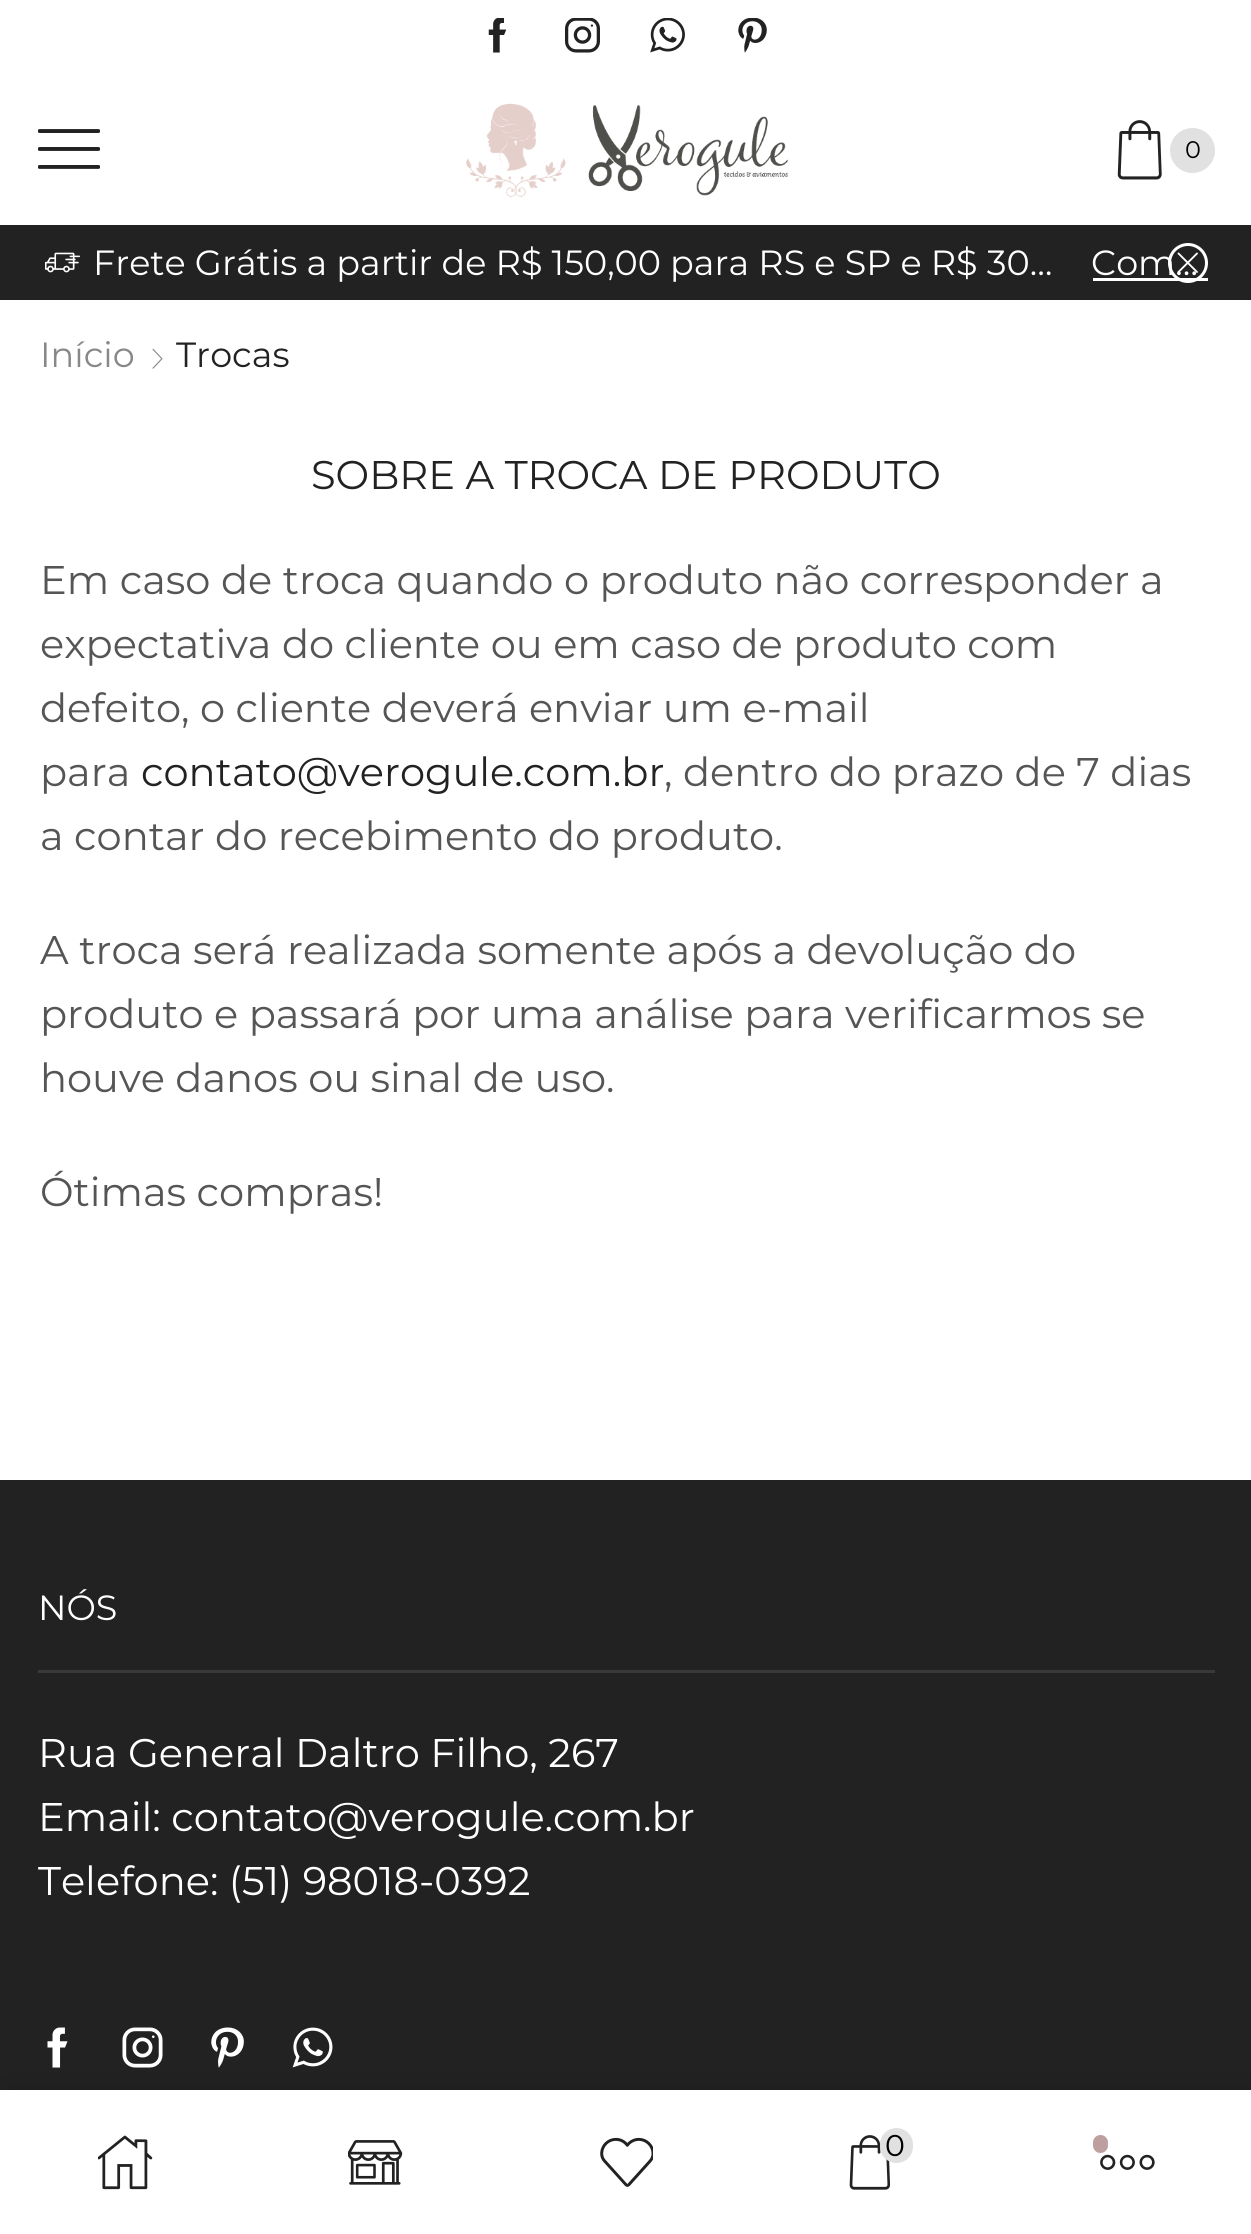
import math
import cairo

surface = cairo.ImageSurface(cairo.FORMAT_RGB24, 1251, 2234)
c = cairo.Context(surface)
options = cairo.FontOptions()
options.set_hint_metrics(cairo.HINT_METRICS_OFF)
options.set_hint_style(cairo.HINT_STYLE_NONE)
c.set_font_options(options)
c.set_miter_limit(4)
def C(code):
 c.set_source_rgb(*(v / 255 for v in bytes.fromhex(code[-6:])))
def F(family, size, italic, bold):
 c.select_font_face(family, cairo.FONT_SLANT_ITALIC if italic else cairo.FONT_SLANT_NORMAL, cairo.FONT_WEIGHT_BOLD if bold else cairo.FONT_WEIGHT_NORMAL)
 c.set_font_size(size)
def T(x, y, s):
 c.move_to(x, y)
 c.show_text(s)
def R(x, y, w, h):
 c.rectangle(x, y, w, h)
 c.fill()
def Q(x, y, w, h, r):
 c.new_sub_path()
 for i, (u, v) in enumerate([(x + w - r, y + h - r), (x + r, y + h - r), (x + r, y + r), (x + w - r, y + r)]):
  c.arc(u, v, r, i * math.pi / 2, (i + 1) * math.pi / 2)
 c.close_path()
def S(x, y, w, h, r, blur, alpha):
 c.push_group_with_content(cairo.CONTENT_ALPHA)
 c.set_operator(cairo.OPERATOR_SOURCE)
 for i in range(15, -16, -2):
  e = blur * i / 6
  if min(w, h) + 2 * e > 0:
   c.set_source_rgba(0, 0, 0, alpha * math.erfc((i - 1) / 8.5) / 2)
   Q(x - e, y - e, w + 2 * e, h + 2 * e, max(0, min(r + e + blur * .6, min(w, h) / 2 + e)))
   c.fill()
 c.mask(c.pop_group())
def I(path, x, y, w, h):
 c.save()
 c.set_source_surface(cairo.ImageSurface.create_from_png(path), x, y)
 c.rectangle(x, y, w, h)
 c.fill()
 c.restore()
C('ffffff')
c.paint()
I('1.png',488,18,19,35)
I('2.png',565,18,35,35)
I('3.png',650,18,35,35)
I('4.png',738,18,29,35)
I('5.png',38,129,62,40)
I('6.png',466,103,323,94)
I('7.png',1117,120,45,60)
C('e1e1e1')
c.arc(1192.5,150.5,22.5,0,2 * math.pi)
c.fill()
F('Montserrat Thin',24,0,0)
C('000000')
T(1185,158,'0')
C('222222')
R(0,225,1251,75)
C('ffffff')
R(1093,278,115,3)
c.new_path()
c.arc(1188,263,18.5,0,2 * math.pi)
c.set_line_width(3)
c.stroke()
F('Montserrat Thin',35,0,0)
T(1091,275,'Com…')
I('8.png',1177,252,21,21)
I('9.png',45,252,35,21)
T(93,275,'Frete Grátis a partir de R$ 150,00 para RS e SP e R$ 30…')
C('888888')
T(40,367,'Início')
I('10.png',152,348,11,21)
C('222222')
T(176,367,'Trocas')
F('Montserrat Thin',40,0,0)
T(311,489,'SOBRE A TROCA DE PRODUTO')
C('555555')
T(40,594,'Em caso de troca quando o produto não corresponder a')
T(40,658,'expectativa do cliente ou em caso de produto com')
T(40,722,'defeito, o cliente deverá enviar um e-mail')
T(40,786,'para')
C('222222')
T(141,786,'contato@verogule.com.br')
C('555555')
T(664,786,', dentro do prazo de 7 dias')
T(40,850,'a contar do recebimento do produto.')
T(40,964,'A troca será realizada somente após a devolução do')
T(40,1028,'produto e passará por uma análise para verificarmos se')
T(40,1092,'houve danos ou sinal de uso.')
T(40,1206,'Ótimas compras!')
C('222222')
R(0,1480,1251,610)
C('393939')
R(38,1670,1177,3)
F('Montserrat Thin',35,0,0)
C('ffffff')
T(38,1620,'NÓS')
F('Montserrat Thin',40,0,0)
T(38,1767,'Rua General Daltro Filho, 267')
T(38,1831,'Email: contato@verogule.com.br')
T(38,1895,'Telefone: (51) 98018-0392')
I('11.png',47,2027,21,41)
I('12.png',122,2027,41,41)
I('13.png',211,2027,33,41)
I('14.png',292,2027,41,41)
C('000000')
S(5,2090,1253,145,0,15,.15)
C('ffffff')
R(0,2090,1251,144)
I('15.png',98,2135,55,55)
I('16.png',348,2140,55,45)
I('17.png',600,2137,53,50)
I('18.png',849,2135,42,55)
C('e1e1e1')
Q(880,2128,33,35,16.5)
c.fill()
F('Montserrat Thin',30,0,0)
C('000000')
T(885,2156,'0')
C('bd9fa0')
Q(1093,2135,15,18,7.5)
c.fill()
I('19.png',1100,2154,55,16)
surface.write_to_png('o.png')
